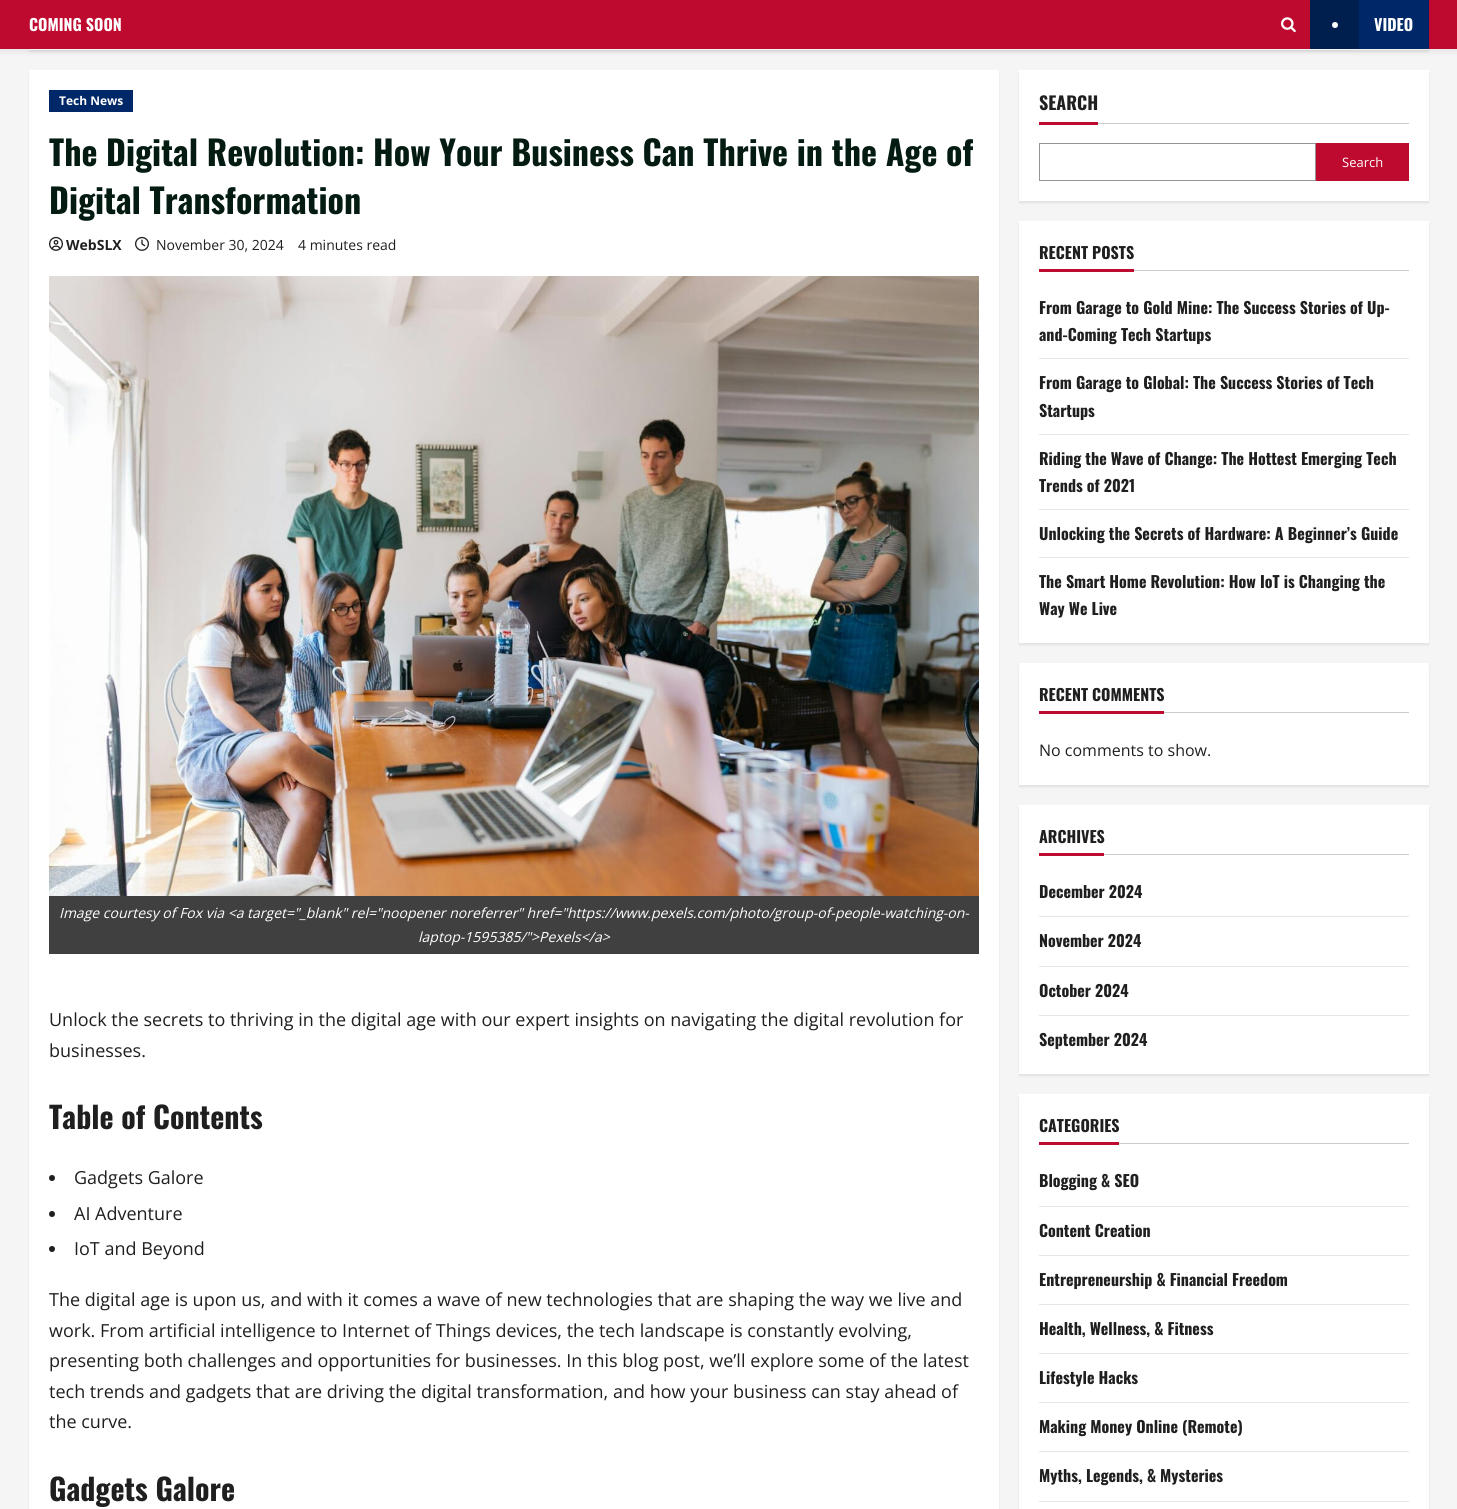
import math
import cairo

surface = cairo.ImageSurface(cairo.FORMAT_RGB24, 1457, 1509)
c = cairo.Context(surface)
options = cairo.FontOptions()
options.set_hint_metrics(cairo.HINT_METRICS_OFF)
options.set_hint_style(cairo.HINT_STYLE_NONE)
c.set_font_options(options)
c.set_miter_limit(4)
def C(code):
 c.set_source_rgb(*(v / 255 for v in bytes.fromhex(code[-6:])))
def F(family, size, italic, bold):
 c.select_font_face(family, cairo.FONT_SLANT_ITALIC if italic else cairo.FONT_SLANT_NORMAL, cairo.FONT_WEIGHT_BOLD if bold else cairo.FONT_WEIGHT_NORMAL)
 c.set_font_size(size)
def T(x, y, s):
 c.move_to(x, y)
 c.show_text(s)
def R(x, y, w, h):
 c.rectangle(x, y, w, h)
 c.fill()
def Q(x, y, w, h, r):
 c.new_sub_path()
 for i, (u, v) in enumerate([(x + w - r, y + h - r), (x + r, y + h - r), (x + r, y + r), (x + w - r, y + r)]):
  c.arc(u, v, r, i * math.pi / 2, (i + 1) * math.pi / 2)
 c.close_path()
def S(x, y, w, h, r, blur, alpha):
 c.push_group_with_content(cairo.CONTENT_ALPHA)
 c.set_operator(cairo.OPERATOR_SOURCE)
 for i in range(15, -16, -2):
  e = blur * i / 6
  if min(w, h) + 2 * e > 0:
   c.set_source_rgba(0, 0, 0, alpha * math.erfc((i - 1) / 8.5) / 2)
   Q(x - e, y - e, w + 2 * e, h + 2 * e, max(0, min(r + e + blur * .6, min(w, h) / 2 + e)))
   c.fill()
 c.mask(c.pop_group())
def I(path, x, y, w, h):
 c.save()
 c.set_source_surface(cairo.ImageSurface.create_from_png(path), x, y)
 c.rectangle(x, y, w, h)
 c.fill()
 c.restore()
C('f5f5f5')
c.paint()
C('000000')
S(29,-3,1400,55,0,1,.08)
C('ffffff')
R(29,49,1400,1)
C('000000')
S(0,2,1457,49,0,4,.08)
C('bf0a30')
R(0,0,1457,49)
F('Oswald',16,0,1)
C('ffffff')
T(29,31,'COMING SOON')
I('1.png',1281,17,15,16)
C('002868')
R(1359,0,70,49)
C('001e4e')
R(1310,0,49,49)
C('ffffff')
c.arc(1335,25,3,0,2 * math.pi)
c.fill()
T(1374,31,'VIDEO')
C('000000')
S(29,72,970,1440,0,1,.08)
C('ffffff')
R(29,70,970,1439)
C('002868')
R(49,90,84,22)
F('Open Sans',12,0,1)
C('ffffff')
T(59,105,'Tech News')
F('Oswald',34,0,1)
C('031b11')
T(49,166,'The Digital Revolution: How Your Business Can Thrive in the Age of')
T(49,214,'Digital Transformation')
I('2.png',49,236,14,15)
F('Open Sans',14,0,1)
C('1f1f1f')
T(66,250,'WebSLX')
I('3.png',135,236,14,15)
F('Open Sans',14,0,0)
T(156,250,'November 30, 2024')
T(298,250,'4 minutes read')
I('4.png',49,276,930,620)
C('404040')
R(49,896,930,58)
F('Open Sans',14,1,0)
C('ffffff')
T(59,918,'Image courtesy of Fox via <a target="_blank" rel="noopener noreferrer" href="https://www.pexels.com/photo/group-of-people-watching-on-')
T(418,942,'laptop-1595385/">Pexels</a>')
F('Open Sans',18,0,0)
C('1f1f1f')
T(49,1026,'Unlock the secrets to thriving in the digital age with our expert insights on navigating the digital revolution for')
T(49,1057,'businesses.')
F('Oswald',30,0,1)
T(49,1129,'Table of Contents')
c.new_path()
c.arc(52,1178,3,0,2 * math.pi)
c.fill()
F('Open Sans',18,0,0)
T(74,1184,'Gadgets Galore')
c.new_path()
c.arc(52,1214,3,0,2 * math.pi)
c.fill()
T(74,1220,'AI Adventure')
c.new_path()
c.arc(52,1249,3,0,2 * math.pi)
c.fill()
T(74,1255,'IoT and Beyond')
T(49,1306,'The digital age is upon us, and with it comes a wave of new technologies that are shaping the way we live and')
T(49,1337,'work. From artificial intelligence to Internet of Things devices, the tech landscape is constantly evolving,')
T(49,1367,'presenting both challenges and opportunities for businesses. In this blog post, we’ll explore some of the latest')
T(49,1398,'tech trends and gadgets that are driving the digital transformation, and how your business can stay ahead of')
T(49,1428,'the curve.')
F('Oswald',30,0,1)
T(49,1501,'Gadgets Galore')
C('000000')
S(1019,72,410,131,0,1,.08)
C('ffffff')
R(1019,70,410,131)
F('Oswald',18,0,1)
C('1f1f1f')
T(1039,110,'SEARCH')
C('bf0a30')
R(1039,122,59,3)
C('cccccc')
R(1098,123,311,1)
c.rectangle(1039.5,143.5,276,37)
C('949494')
c.set_line_width(1)
c.stroke()
C('bf0a30')
R(1316,143,93,38)
F('Open Sans',13,0,0)
C('ffffff')
T(1342,167,'Search')
C('000000')
S(1019,223,410,422,0,1,.08)
C('ffffff')
R(1019,221,410,422)
F('Oswald',16,0,1)
C('1f1f1f')
T(1039,259,'RECENT POSTS')
C('bf0a30')
R(1039,269,95,3)
C('cccccc')
R(1134,270,275,1)
C('e6e6e6')
R(1039,358,370,1)
C('1f1f1f')
T(1039,314,'From Garage to Gold Mine: The Success Stories of Up-')
T(1039,341,'and-Coming Tech Startups')
C('e6e6e6')
R(1039,434,370,1)
C('1f1f1f')
T(1039,389,'From Garage to Global: The Success Stories of Tech')
T(1039,417,'Startups')
C('e6e6e6')
R(1039,509,370,1)
C('1f1f1f')
T(1039,465,'Riding the Wave of Change: The Hottest Emerging Tech')
c.save()
c.rectangle(1039,241,370,382)
c.clip()
T(1039,492,'Trends of 2021')
c.restore()
C('e6e6e6')
R(1039,557,370,1)
C('1f1f1f')
T(1039,540,'Unlocking the Secrets of Hardware: A Beginner’s Guide')
c.save()
c.rectangle(1039,241,370,382)
c.clip()
T(1039,588,'The Smart Home Revolution: How IoT is Changing the')
c.restore()
T(1039,615,'Way We Live')
C('000000')
S(1019,665,410,122,0,1,.08)
C('ffffff')
R(1019,663,410,122)
C('1f1f1f')
T(1039,701,'RECENT COMMENTS')
C('bf0a30')
R(1039,711,125,3)
C('cccccc')
R(1164,712,245,1)
F('Open Sans',16,0,0)
C('1f1f1f')
T(1039,756,'No comments to show.')
C('000000')
S(1019,807,410,269,0,1,.08)
C('ffffff')
R(1019,805,410,269)
F('Oswald',16,0,1)
C('1f1f1f')
T(1039,843,'ARCHIVES')
C('bf0a30')
R(1039,853,65,3)
C('cccccc')
R(1104,854,305,1)
C('e6e6e6')
R(1039,916,370,1)
C('1f1f1f')
T(1039,898,'December 2024')
C('e6e6e6')
R(1039,966,370,1)
C('1f1f1f')
T(1039,947,'November 2024')
C('e6e6e6')
R(1039,1015,370,1)
C('1f1f1f')
T(1039,997,'October 2024')
T(1039,1046,'September 2024')
C('000000')
S(1019,1096,410,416,0,1,.08)
C('ffffff')
R(1019,1094,410,415)
C('1f1f1f')
T(1039,1132,'CATEGORIES')
C('bf0a30')
R(1039,1142,80,3)
C('cccccc')
R(1119,1143,290,1)
C('e6e6e6')
R(1039,1206,370,1)
C('1f1f1f')
T(1039,1187,'Blogging & SEO')
C('e6e6e6')
R(1039,1255,370,1)
C('1f1f1f')
T(1039,1237,'Content Creation')
C('e6e6e6')
R(1039,1304,370,1)
C('1f1f1f')
T(1039,1286,'Entrepreneurship & Financial Freedom')
C('e6e6e6')
R(1039,1353,370,1)
C('1f1f1f')
T(1039,1335,'Health, Wellness, & Fitness')
C('e6e6e6')
R(1039,1402,370,1)
C('1f1f1f')
T(1039,1384,'Lifestyle Hacks')
C('e6e6e6')
R(1039,1451,370,1)
C('1f1f1f')
T(1039,1433,'Making Money Online (Remote)')
C('e6e6e6')
R(1039,1501,370,1)
C('1f1f1f')
T(1039,1482,'Myths, Legends, & Mysteries')
surface.write_to_png('o.png')
